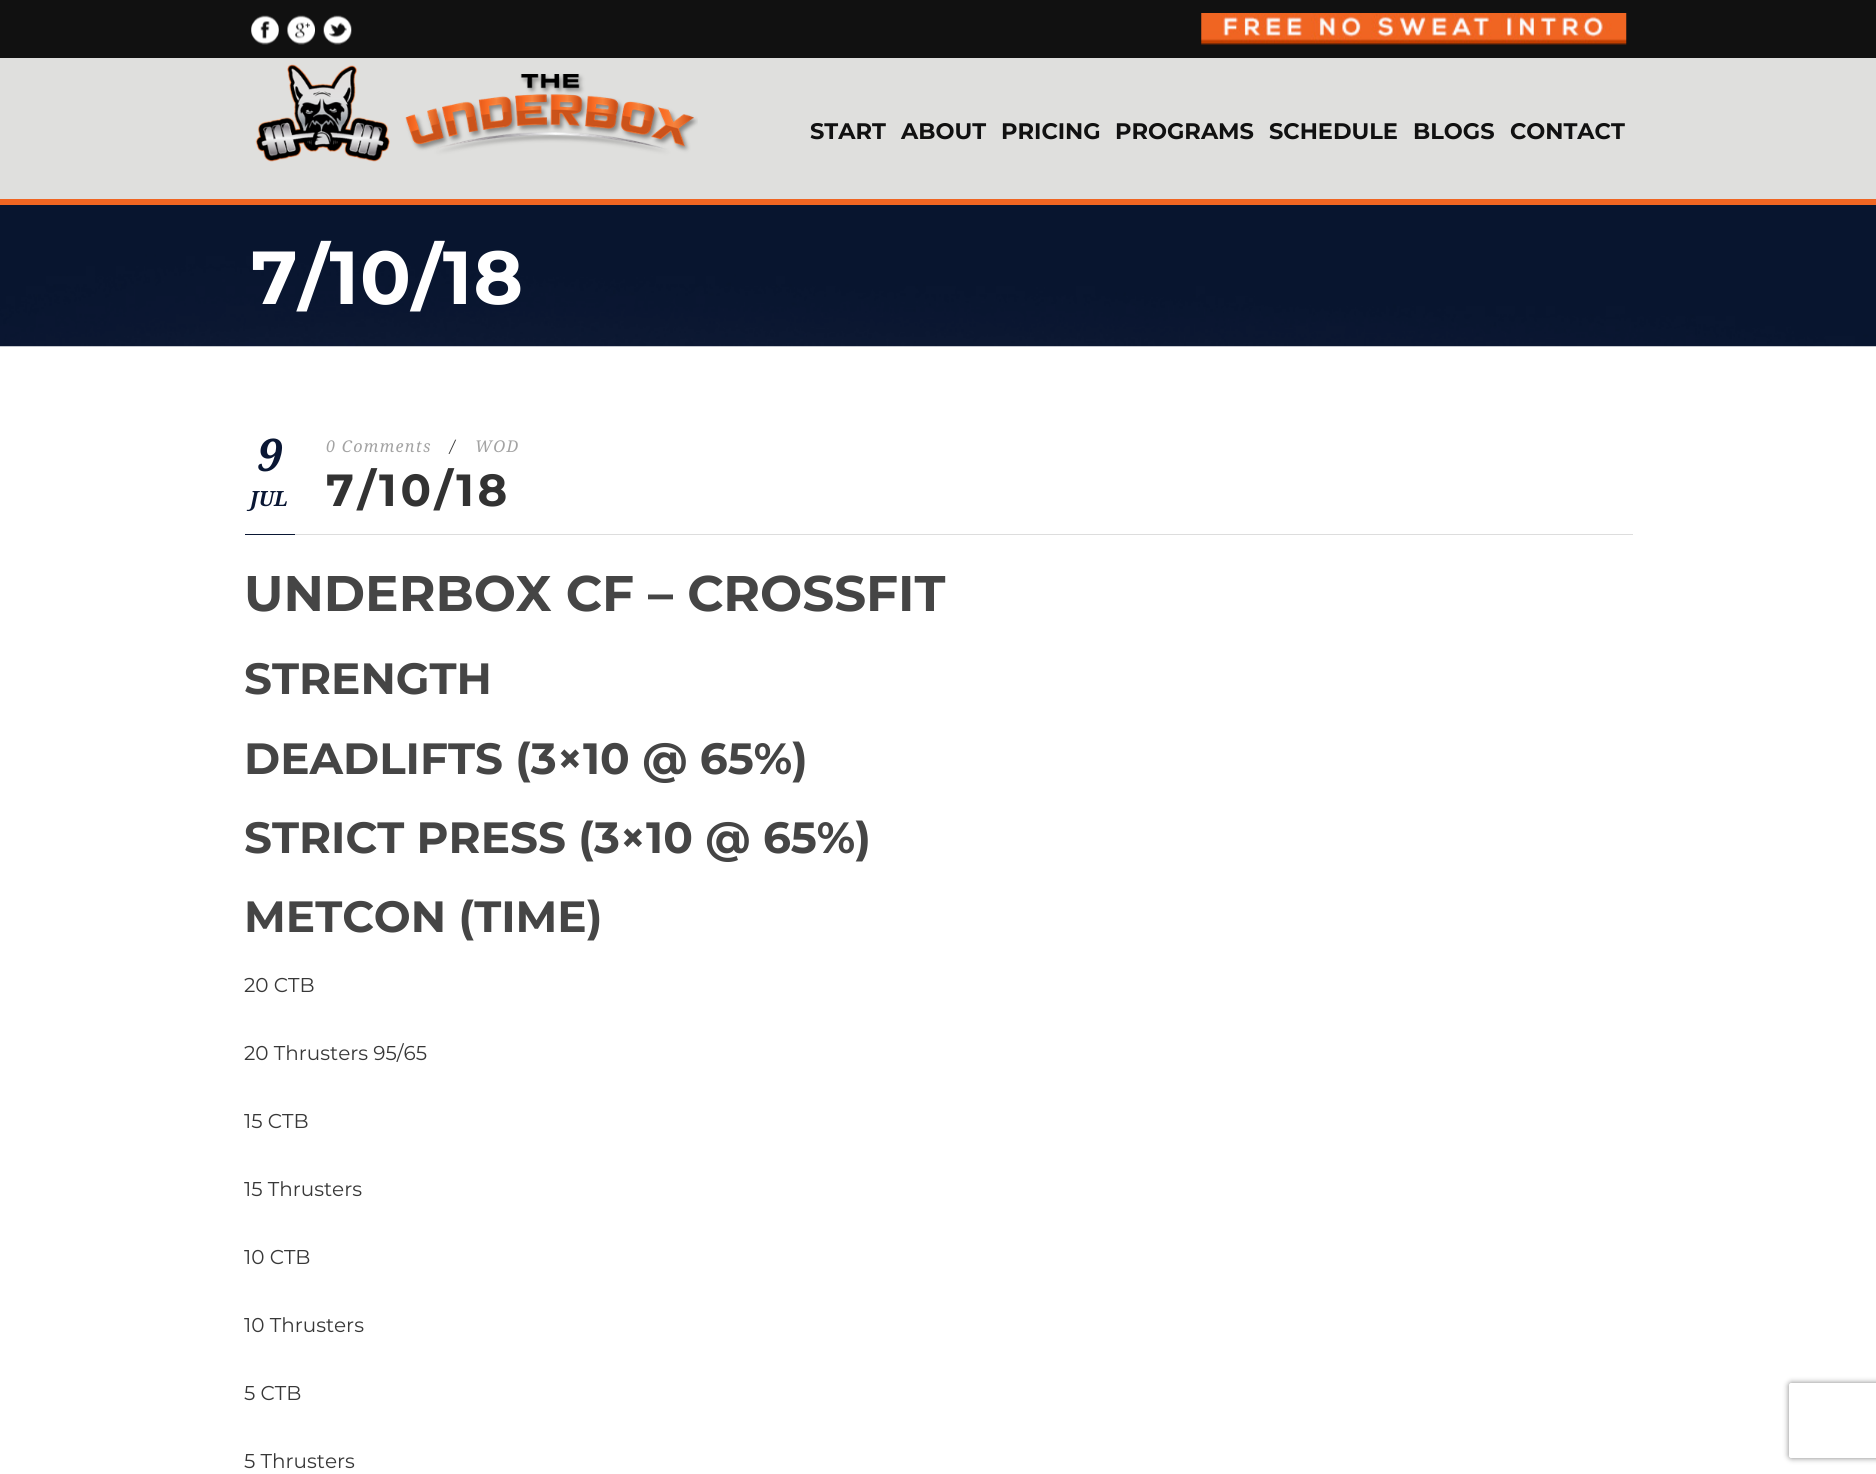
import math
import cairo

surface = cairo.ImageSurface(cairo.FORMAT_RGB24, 1876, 1474)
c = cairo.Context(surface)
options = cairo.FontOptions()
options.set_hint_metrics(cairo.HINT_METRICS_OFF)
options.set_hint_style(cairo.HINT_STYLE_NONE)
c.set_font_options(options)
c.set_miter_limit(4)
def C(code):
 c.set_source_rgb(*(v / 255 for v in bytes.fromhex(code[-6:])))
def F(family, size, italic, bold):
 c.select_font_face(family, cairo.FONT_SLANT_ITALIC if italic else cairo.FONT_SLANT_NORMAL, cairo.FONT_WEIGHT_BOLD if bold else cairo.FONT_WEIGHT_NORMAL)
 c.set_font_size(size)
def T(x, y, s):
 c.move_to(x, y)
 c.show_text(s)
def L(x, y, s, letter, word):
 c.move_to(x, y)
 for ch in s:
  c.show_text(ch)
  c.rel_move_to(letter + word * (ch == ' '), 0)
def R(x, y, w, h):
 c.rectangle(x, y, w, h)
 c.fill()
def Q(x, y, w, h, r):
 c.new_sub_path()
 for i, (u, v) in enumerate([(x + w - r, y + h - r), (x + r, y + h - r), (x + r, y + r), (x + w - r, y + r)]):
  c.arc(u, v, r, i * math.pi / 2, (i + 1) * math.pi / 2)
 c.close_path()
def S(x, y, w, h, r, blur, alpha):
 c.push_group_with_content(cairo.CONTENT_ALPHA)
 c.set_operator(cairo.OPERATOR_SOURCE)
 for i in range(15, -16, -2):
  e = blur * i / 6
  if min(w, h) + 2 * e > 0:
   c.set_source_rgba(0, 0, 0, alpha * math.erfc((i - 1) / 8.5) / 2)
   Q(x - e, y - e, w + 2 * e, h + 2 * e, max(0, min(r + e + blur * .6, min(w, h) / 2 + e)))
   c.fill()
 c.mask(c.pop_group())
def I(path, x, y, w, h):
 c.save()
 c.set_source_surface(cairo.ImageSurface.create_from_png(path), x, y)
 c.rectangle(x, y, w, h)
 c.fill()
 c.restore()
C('ffffff')
c.paint()
C('111111')
R(0,0,1876,58)
I('1.png',251,15,28,30)
I('2.png',287,15,28,30)
I('3.png',323,15,29,30)
I('4.png',1201,13,426,32)
C('dfdfdd')
R(0,58,1876,141)
C('f06522')
R(0,199,1876,6)
I('5.png',255,64,443,98)
F('Montserrat',22.5,0,1)
C('111111')
T(810,139,'START')
T(901,139,'ABOUT')
T(1001,139,'PRICING')
T(1115,139,'PROGRAMS')
T(1269,139,'SCHEDULE')
T(1413,139,'BLOGS')
T(1510,139,'CONTACT')
I('6.png',0,205,1876,142)
F('Montserrat',75,0,1)
C('ffffff')
L(251,304,'7/10/18',1.25,0)
C('dddddd')
R(295,534,1338,1)
F('Droid Serif',45,1,1)
C('0a1734')
T(257,471,'9')
F('Droid Serif',21,1,1)
T(250,506,'JUL')
F('Droid Serif',16.25,1,0)
C('a3a3a3')
L(326,452,'0 Comments',1.25,0)
C('383838')
L(450,452,'/',1.25,0)
C('a3a3a3')
L(475,452,'WOD',1.25,0)
F('Montserrat',45,0,1)
C('323232')
L(326,506,'7/10/18',3.75,0)
C('0a1734')
R(245,534,50,1)
F('Montserrat',50,0,1)
C('454545')
T(244,611,'UNDERBOX CF – CROSSFIT')
F('Montserrat',43.75,0,1)
T(244,694,'STRENGTH')
T(244,774,'DEADLIFTS (3×10 @ 65%)')
T(244,853,'STRICT PRESS (3×10 @ 65%)')
T(244,932,'METCON (TIME)')
F('Montserrat',20,0,0)
C('383838')
T(244,992,'20 CTB')
T(244,1060,'20 Thrusters 95/65')
T(244,1128,'15 CTB')
T(244,1196,'15 Thrusters')
T(244,1264,'10 CTB')
T(244,1332,'10 Thrusters')
T(244,1400,'5 CTB')
T(244,1468,'5 Thrusters')
c.save()
c.set_fill_rule(cairo.FILL_RULE_EVEN_ODD)
c.new_path()
c.move_to(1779,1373)
c.line_to(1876,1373)
c.line_to(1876,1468)
c.line_to(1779,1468)
c.close_path()
c.move_to(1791.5,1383)
c.line_to(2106.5,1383)
c.curve_to(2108,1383,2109,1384,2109,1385.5)
c.line_to(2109,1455.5)
c.curve_to(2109,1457,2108,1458,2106.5,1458)
c.line_to(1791.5,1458)
c.curve_to(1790,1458,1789,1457,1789,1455.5)
c.line_to(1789,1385.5)
c.curve_to(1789,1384,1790,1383,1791.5,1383)
c.close_path()
c.clip()
C('808080')
S(1789,1383,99,75,2.5,3,1)
c.restore()
surface.write_to_png('o.png')
